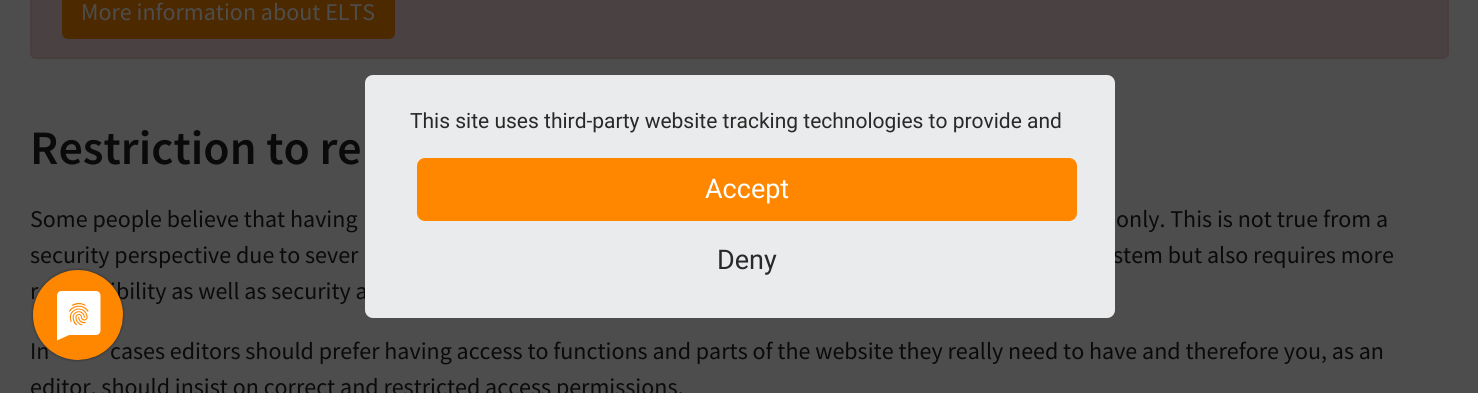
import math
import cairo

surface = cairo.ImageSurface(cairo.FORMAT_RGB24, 1478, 393)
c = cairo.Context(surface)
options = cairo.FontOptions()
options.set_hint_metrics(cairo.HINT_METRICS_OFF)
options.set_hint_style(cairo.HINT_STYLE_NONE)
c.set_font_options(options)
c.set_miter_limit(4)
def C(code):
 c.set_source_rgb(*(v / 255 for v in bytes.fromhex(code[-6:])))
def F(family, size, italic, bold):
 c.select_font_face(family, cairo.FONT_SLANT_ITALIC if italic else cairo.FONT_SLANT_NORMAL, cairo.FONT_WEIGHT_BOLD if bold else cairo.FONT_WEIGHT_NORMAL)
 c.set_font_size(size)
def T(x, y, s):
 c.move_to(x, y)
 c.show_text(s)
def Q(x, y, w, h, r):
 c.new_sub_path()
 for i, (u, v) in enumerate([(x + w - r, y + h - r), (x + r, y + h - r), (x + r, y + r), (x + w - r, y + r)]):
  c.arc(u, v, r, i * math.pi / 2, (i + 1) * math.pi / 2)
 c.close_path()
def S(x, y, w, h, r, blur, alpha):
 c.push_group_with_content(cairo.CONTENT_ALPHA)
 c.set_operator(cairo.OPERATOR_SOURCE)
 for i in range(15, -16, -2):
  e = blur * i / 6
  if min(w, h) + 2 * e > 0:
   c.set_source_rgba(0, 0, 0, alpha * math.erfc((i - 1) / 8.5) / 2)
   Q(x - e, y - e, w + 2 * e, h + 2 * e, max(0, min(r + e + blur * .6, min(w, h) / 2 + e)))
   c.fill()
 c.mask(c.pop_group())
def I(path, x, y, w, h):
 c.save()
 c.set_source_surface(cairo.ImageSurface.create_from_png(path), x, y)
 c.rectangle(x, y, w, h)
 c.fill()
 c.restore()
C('4d4d4d')
c.paint()
C('4a4242')
Q(31,-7,1417,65,5)
c.fill_preserve()
C('493e3e')
c.stroke()
C('4d2900')
Q(63,-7,331,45,5)
c.fill_preserve()
c.stroke()
F('Source Sans Pro',24,0,0)
C('4d4d4d')
T(81,20,'More information about ELTS')
F('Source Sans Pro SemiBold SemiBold',48,0,0)
C('0a0a0a')
T(30,164,'Restriction to re')
F('Source Sans Pro',24,0,0)
T(30,227,'Some people believe that having')
T(1116,227,'only. This is not true from a')
T(30,263,'security perspective due to sever')
T(1113,263,'stem but also requires more')
T(30,299,'r')
T(110,299,'ibility as well as security a')
T(30,359,'In')
T(110,359,'cases editors should prefer having access to functions and parts of the website they really need to have and therefore you, as an')
T(30,395,'editor, should insist on correct and restricted access permissions.')
c.save()
Q(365,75,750,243,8)
c.clip()
C('000000')
S(365,84,750,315,0,27,.3)
c.restore()
C('eaebec')
Q(365,75,750,243,8)
c.fill()
F('Roboto',21,0,0)
C('292929')
T(410,128,'This site uses third-party website tracking technologies to provide and')
C('ff8700')
Q(417,158,660,63,8)
c.fill()
F('Roboto',27,0,0)
C('ffffff')
T(705,198,'Accept')
C('292929')
T(717,269,'Deny')
I('1.png',31,268,94,94)
surface.write_to_png('o.png')
